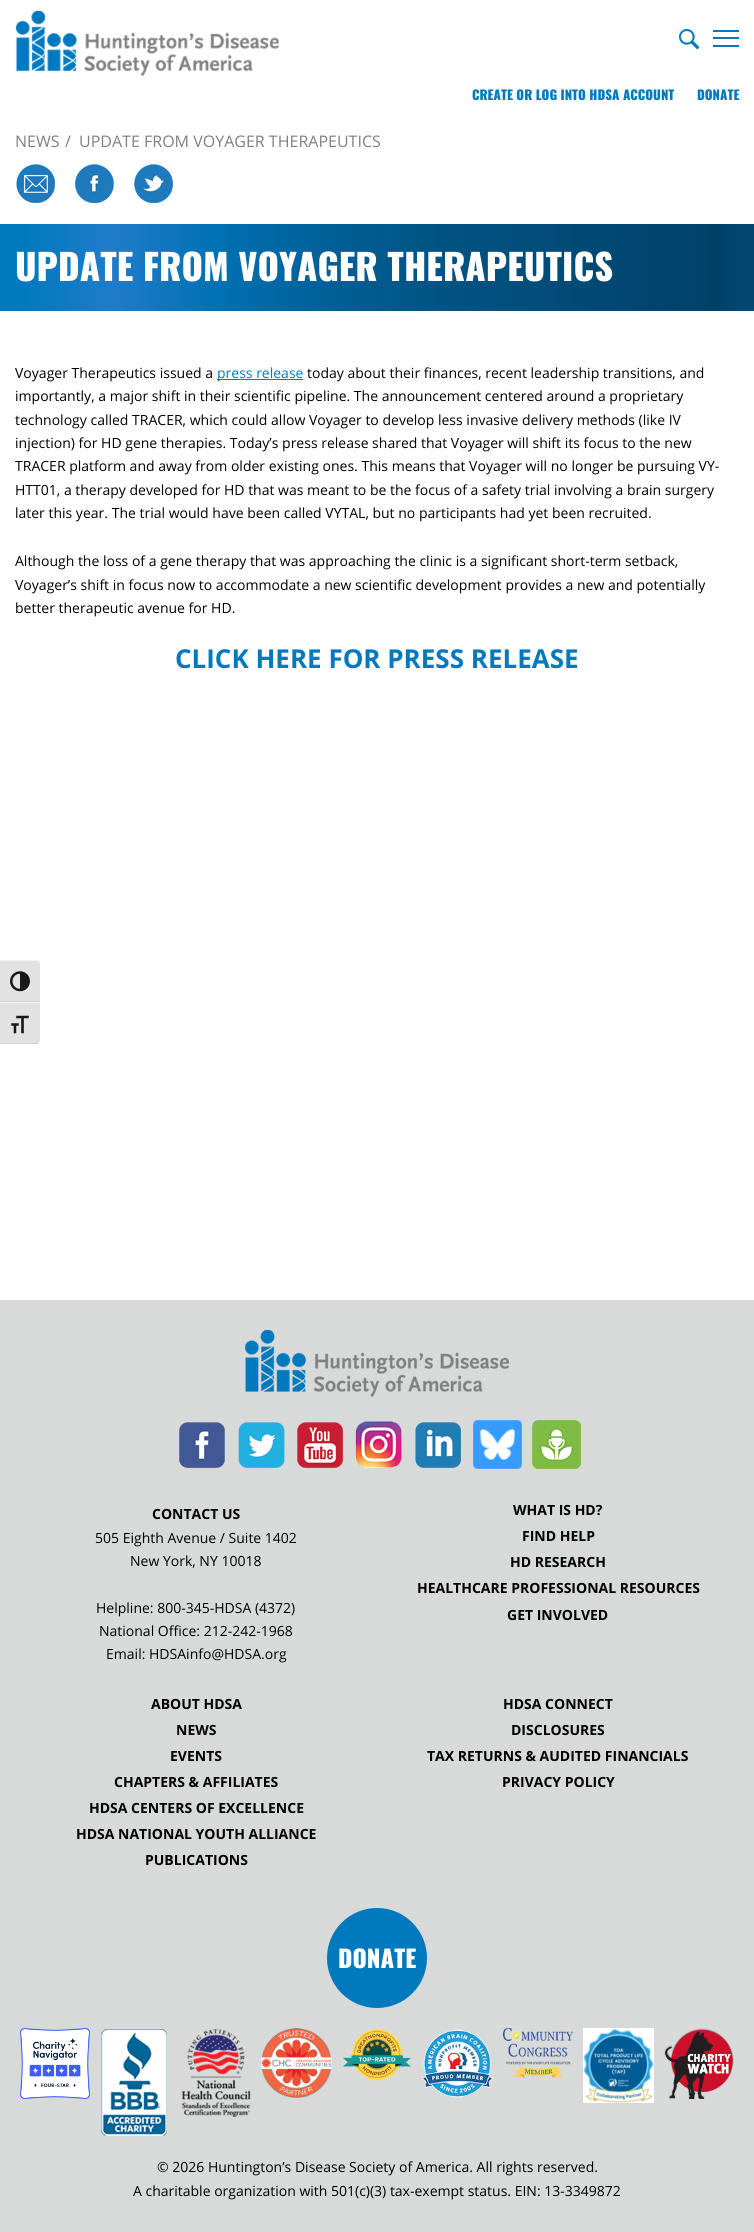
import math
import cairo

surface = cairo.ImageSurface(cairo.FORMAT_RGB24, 754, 2232)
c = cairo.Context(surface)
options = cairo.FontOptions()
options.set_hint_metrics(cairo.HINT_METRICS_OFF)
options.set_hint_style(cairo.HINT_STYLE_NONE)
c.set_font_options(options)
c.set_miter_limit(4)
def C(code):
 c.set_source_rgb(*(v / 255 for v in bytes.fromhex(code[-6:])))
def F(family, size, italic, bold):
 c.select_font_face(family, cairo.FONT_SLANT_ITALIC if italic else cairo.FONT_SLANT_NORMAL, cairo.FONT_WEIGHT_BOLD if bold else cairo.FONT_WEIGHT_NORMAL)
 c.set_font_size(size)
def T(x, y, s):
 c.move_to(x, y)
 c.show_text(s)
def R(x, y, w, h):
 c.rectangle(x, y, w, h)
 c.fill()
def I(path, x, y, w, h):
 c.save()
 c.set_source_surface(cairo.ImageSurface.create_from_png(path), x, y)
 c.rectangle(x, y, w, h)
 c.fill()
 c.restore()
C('ffffff')
c.paint()
I('1.png',679,29,20,20)
C('0079bf')
R(713,30,26,2)
R(713,37,26,2)
R(713,45,26,2)
I('2.png',15,10,265,66)
F('Oswald Black',13,0,0)
T(472,100,'CREATE OR LOG INTO HDSA ACCOUNT')
T(697,100,'DONATE')
F('Open Sans',16,0,0)
C('7e8083')
T(15,147,'NEWS')
T(65,147,'/')
T(79,147,'UPDATE FROM VOYAGER THERAPEUTICS')
I('3.png',16,164,39,39)
I('4.png',75,164,39,40)
I('5.png',134,163,40,41)
gradient = cairo.LinearGradient(0,268,754,268)
gradient.add_color_stop_rgba(.03,0,0.475,0.749,1)
gradient.add_color_stop_rgba(.15,0.125,0.486,0.792,1)
gradient.add_color_stop_rgba(.29,0,0.443,0.698,1)
gradient.add_color_stop_rgba(.43,0.004,0.376,0.596,1)
gradient.add_color_stop_rgba(.57,0.004,0.329,0.518,1)
gradient.add_color_stop_rgba(.95,0.004,0.255,0.408,1)
gradient.add_color_stop_rgba(.98,0.004,0.278,0.439,1)
c.set_source(gradient)
R(0,224,754,87)
F('Oswald Black',36,0,0)
C('ffffff')
T(15,281,'UPDATE FROM VOYAGER THERAPEUTICS')
F('Open Sans',14,0,0)
C('000000')
T(15,378,'Voyager Therapeutics issued a')
C('0079bf')
R(217,379,86,1)
T(217,378,'press release')
C('000000')
T(307,378,'today about their finances, recent leadership transitions, and')
T(15,401,'importantly, a major shift in their scientific pipeline. The announcement centered around a proprietary')
T(15,425,'technology called TRACER, which could allow Voyager to develop less invasive delivery methods (like IV')
T(15,448,'injection) for HD gene therapies. Today’s press release shared that Voyager will shift its focus to the new')
T(15,471,'TRACER platform and away from older existing ones. This means that Voyager will no longer be pursuing VY-')
T(15,495,'HTT01, a therapy developed for HD that was meant to be the focus of a safety trial involving a brain surgery')
T(15,518,'later this year. The trial would have been called VYTAL, but no participants had yet been recruited.')
T(15,566,'Although the loss of a gene therapy that was approaching the clinic is a significant short-term setback,')
T(15,590,'Voyager’s shift in focus now to accommodate a new scientific development provides a new and potentially')
T(15,613,'better therapeutic avenue for HD.')
F('Open Sans',26,0,1)
C('0079bf')
T(175,668,'CLICK HERE FOR PRESS RELEASE')
C('d8d9d9')
R(0,1300,754,932)
I('6.png',245,1330,264,67)
I('7.png',179,1422,46,47)
I('8.png',238,1422,47,47)
I('9.png',297,1422,47,47)
I('10.png',355,1421,47,47)
I('11.png',415,1422,46,47)
I('12.png',473,1420,49,49)
I('13.png',532,1420,49,49)
F('Open Sans',14,0,1)
C('000000')
T(152,1519,'CONTACT US')
F('Open Sans',14,0,0)
T(95,1543,'505 Eighth Avenue / Suite 1402')
T(130,1566,'New York, NY 10018')
T(96,1613,'Helpline: 800-345-HDSA (4372)')
T(99,1636,'National Office: 212-242-1968')
T(106,1659,'Email: HDSAinfo@HDSA.org')
F('Open Sans',14,0,1)
T(513,1515,'WHAT IS HD?')
T(522,1541,'FIND HELP')
T(510,1567,'HD RESEARCH')
T(417,1593,'HEALTHCARE PROFESSIONAL RESOURCES')
T(507,1620,'GET INVOLVED')
T(151,1709,'ABOUT HDSA')
T(176,1735,'NEWS')
T(170,1761,'EVENTS')
T(114,1787,'CHAPTERS & AFFILIATES')
T(89,1813,'HDSA CENTERS OF EXCELLENCE')
T(76,1839,'HDSA NATIONAL YOUTH ALLIANCE')
T(145,1865,'PUBLICATIONS')
T(503,1709,'HDSA CONNECT')
T(511,1735,'DISCLOSURES')
T(427,1761,'TAX RETURNS & AUDITED FINANCIALS')
T(502,1787,'PRIVACY POLICY')
C('0079bf')
c.new_path()
c.arc(377,1958,50,0,2 * math.pi)
c.fill()
F('Oswald Black',24,0,0)
C('ffffff')
T(338,1968,'DONATE')
I('14.png',20,2028,70,71)
I('15.png',101,2029,66,107)
I('16.png',182,2029,69,88)
I('17.png',261,2028,71,70)
I('18.png',342,2028,70,53)
I('19.png',422,2029,71,69)
I('20.png',503,2028,70,50)
I('21.png',583,2028,71,75)
I('22.png',664,2028,70,71)
F('Open Sans',14,0,0)
C('000000')
T(157,2172,'© 2026 Huntington’s Disease Society of America. All rights reserved.')
T(133,2196,'A charitable organization with 501(c)(3) tax-exempt status. EIN: 13-3349872')
C('e2e2e2')
c.new_path()
c.move_to(0,960)
c.line_to(36,960)
c.curve_to(38,960,40,962,40,964)
c.line_to(40,1002)
c.line_to(0,1002)
c.close_path()
c.fill()
C('f5f5f5')
c.new_path()
c.move_to(0,960)
c.line_to(0,961)
c.line_to(36,961)
c.curve_to(38,961,40,962,40,964)
c.curve_to(40,962,38,960,36,960)
c.close_path()
c.fill()
C('d2d2d2')
R(0,1001,40,1)
I('23.png',10,971,20,21)
C('e2e2e2')
c.new_path()
c.move_to(0,1002)
c.line_to(40,1002)
c.line_to(40,1040)
c.curve_to(40,1042,38,1044,36,1044)
c.line_to(0,1044)
c.close_path()
c.fill()
C('f5f5f5')
R(0,1002,40,1)
C('d2d2d2')
c.new_path()
c.move_to(0,1043)
c.line_to(0,1044)
c.line_to(36,1044)
c.curve_to(38,1044,40,1042,40,1040)
c.curve_to(40,1042,38,1043,36,1043)
c.close_path()
c.fill()
I('24.png',11,1015,18,19)
surface.write_to_png('o.png')
